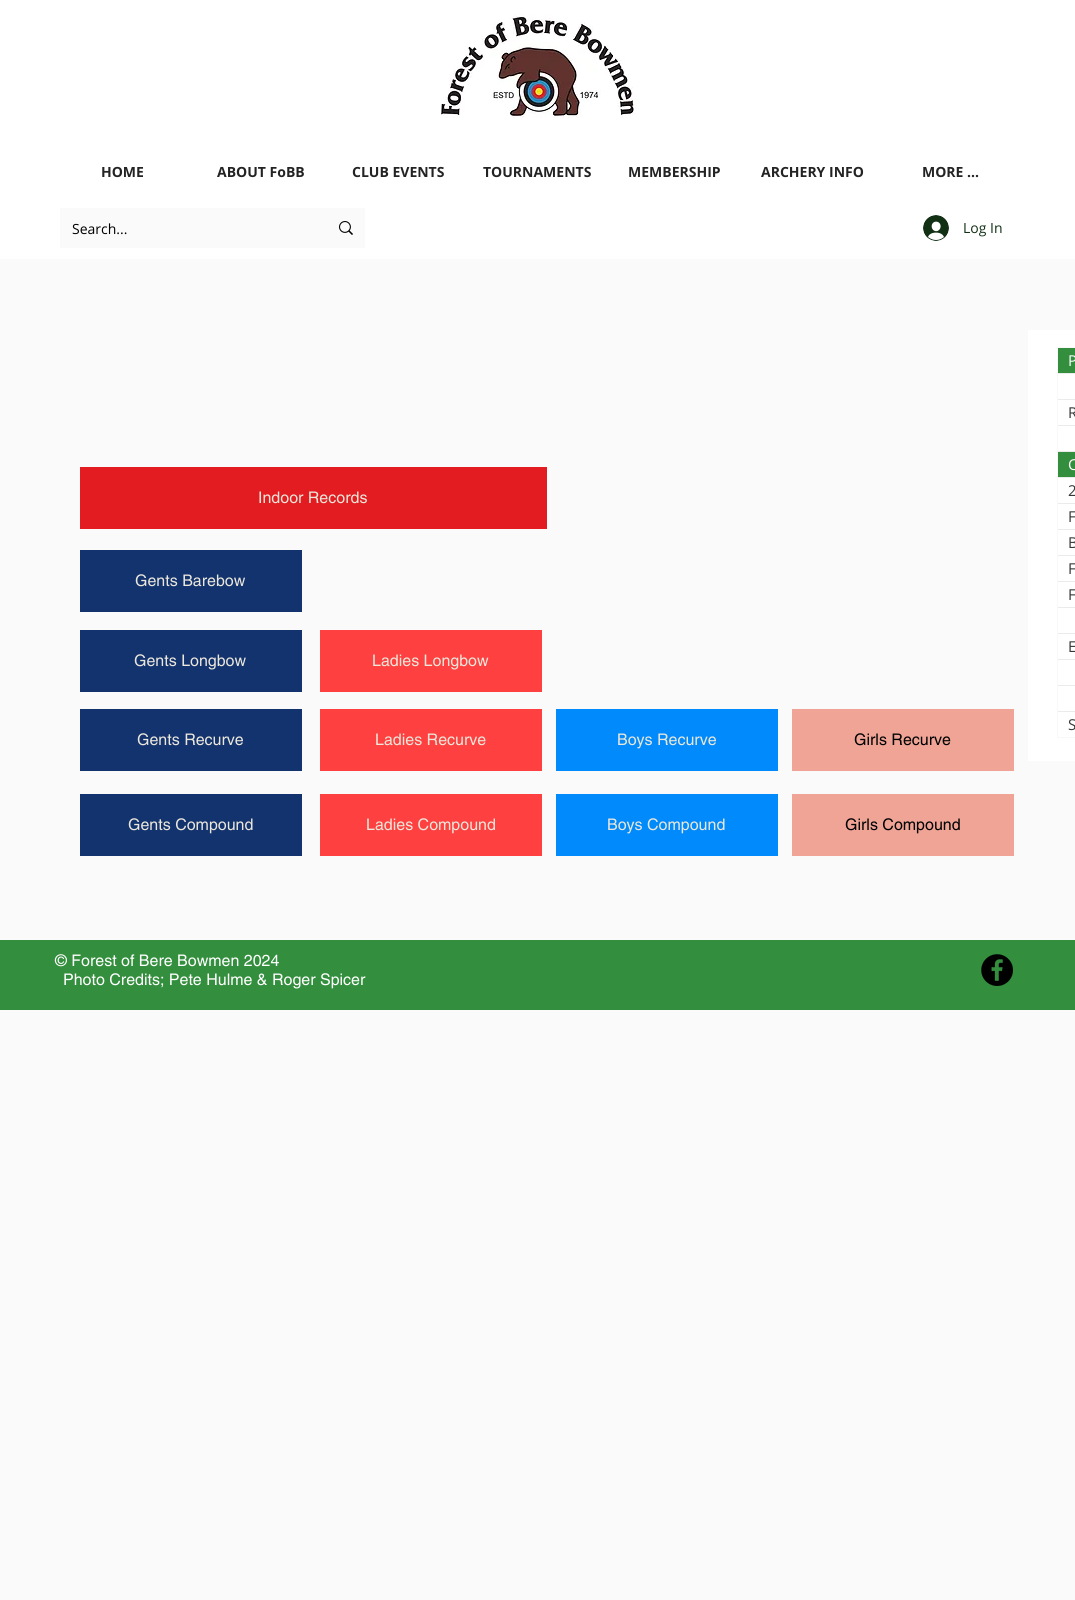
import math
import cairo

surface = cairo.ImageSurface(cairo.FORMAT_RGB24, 1075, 1600)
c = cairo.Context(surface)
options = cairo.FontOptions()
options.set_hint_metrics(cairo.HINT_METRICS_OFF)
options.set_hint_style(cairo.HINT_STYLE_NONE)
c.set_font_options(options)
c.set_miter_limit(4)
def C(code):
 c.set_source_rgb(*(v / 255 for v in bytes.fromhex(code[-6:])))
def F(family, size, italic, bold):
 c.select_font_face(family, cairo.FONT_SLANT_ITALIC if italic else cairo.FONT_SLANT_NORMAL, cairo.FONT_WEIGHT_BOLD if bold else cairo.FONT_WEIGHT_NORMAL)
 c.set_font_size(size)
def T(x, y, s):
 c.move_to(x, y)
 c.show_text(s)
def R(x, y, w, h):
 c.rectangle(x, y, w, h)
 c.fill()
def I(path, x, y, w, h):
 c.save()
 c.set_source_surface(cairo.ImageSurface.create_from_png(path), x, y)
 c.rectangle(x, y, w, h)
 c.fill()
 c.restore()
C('fafafa')
c.paint()
C('ffffff')
R(0,0,1075,259)
I('1.png',441,14,196,104)
F('Open Sans',14,0,1)
C('242323')
T(101,177,'HOME')
T(217,177,'ABOUT FoBB')
T(352,177,'CLUB EVENTS')
T(483,177,'TOURNAMENTS')
T(628,177,'MEMBERSHIP')
T(761,177,'ARCHERY INFO')
T(922,177,'MORE ...')
C('fafafa')
R(60,208,305,40)
F('Open Sans',14,0,0)
C('000000')
T(72,234,'Search...')
I('2.png',339,221,14,14)
I('3.png',923,215,26,26)
C('113014')
T(963,233,'Log In')
C('e21c21')
R(80,467,467,62)
F('helvetica',16,0,0)
C('ebe7db')
T(258,503,'Indoor Records')
C('13336e')
R(80,550,222,62)
C('ebe7db')
T(135,586,'Gents Barebow')
C('13336e')
R(80,630,222,62)
C('ebe7db')
T(134,666,'Gents Longbow')
C('ff4040')
R(320,630,222,62)
C('ebe7db')
T(372,666,'Ladies Longbow')
C('13336e')
R(80,709,222,62)
C('ebe7db')
T(137,745,'Gents Recurve')
C('ff4040')
R(320,709,222,62)
C('ebe7db')
T(375,745,'Ladies Recurve')
C('008afc')
R(556,709,222,62)
C('ebe7db')
T(617,745,'Boys Recurve')
C('efa495')
R(792,709,222,62)
C('000000')
T(854,745,'Girls Recurve')
C('13336e')
R(80,794,222,62)
C('ebe7db')
T(128,830,'Gents Compound')
C('ff4040')
R(320,794,222,62)
C('ebe7db')
T(366,830,'Ladies Compound')
C('008afc')
R(556,794,222,62)
C('ebe7db')
T(607,830,'Boys Compound')
C('efa495')
R(792,794,222,62)
C('000000')
T(845,830,'Girls Compound')
C('ffffff')
R(1028,330,47,431)
c.rectangle(1057.5,347.5,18,390)
C('f8f8f8')
c.set_line_width(1)
c.stroke()
C('ebebeb')
R(1058,373,17,1)
C('338f3d')
R(1058,348,17,25)
F('Open Sans',15,0,0)
C('ffffff')
T(1068,366,'P')
C('ebebeb')
R(1058,399,17,1)
R(1058,425,17,1)
C('373737')
T(1068,418,'R')
C('ebebeb')
R(1058,451,17,1)
R(1058,477,17,1)
C('338f3d')
R(1058,452,17,25)
C('ffffff')
T(1068,470,'C')
C('ebebeb')
R(1058,503,17,1)
C('373737')
T(1068,496,'2')
C('ebebeb')
R(1058,529,17,1)
C('373737')
T(1068,522,'F')
C('ebebeb')
R(1058,555,17,1)
C('373737')
T(1068,548,'B')
C('ebebeb')
R(1058,581,17,1)
C('373737')
T(1068,574,'F')
C('ebebeb')
R(1058,607,17,1)
C('373737')
T(1068,600,'F')
C('ebebeb')
R(1058,633,17,1)
R(1058,659,17,1)
C('373737')
T(1068,652,'E')
C('ebebeb')
R(1058,685,17,1)
R(1058,711,17,1)
C('373737')
T(1068,730,'S')
C('338f3d')
R(0,940,1075,70)
F('helvetica',16,0,0)
C('ffffff')
T(55,966,'© Forest of Bere Bowmen 2024')
T(63,985,'Photo Credits; Pete Hulme & Roger Spicer')
I('4.png',981,954,32,32)
surface.write_to_png('o.png')
